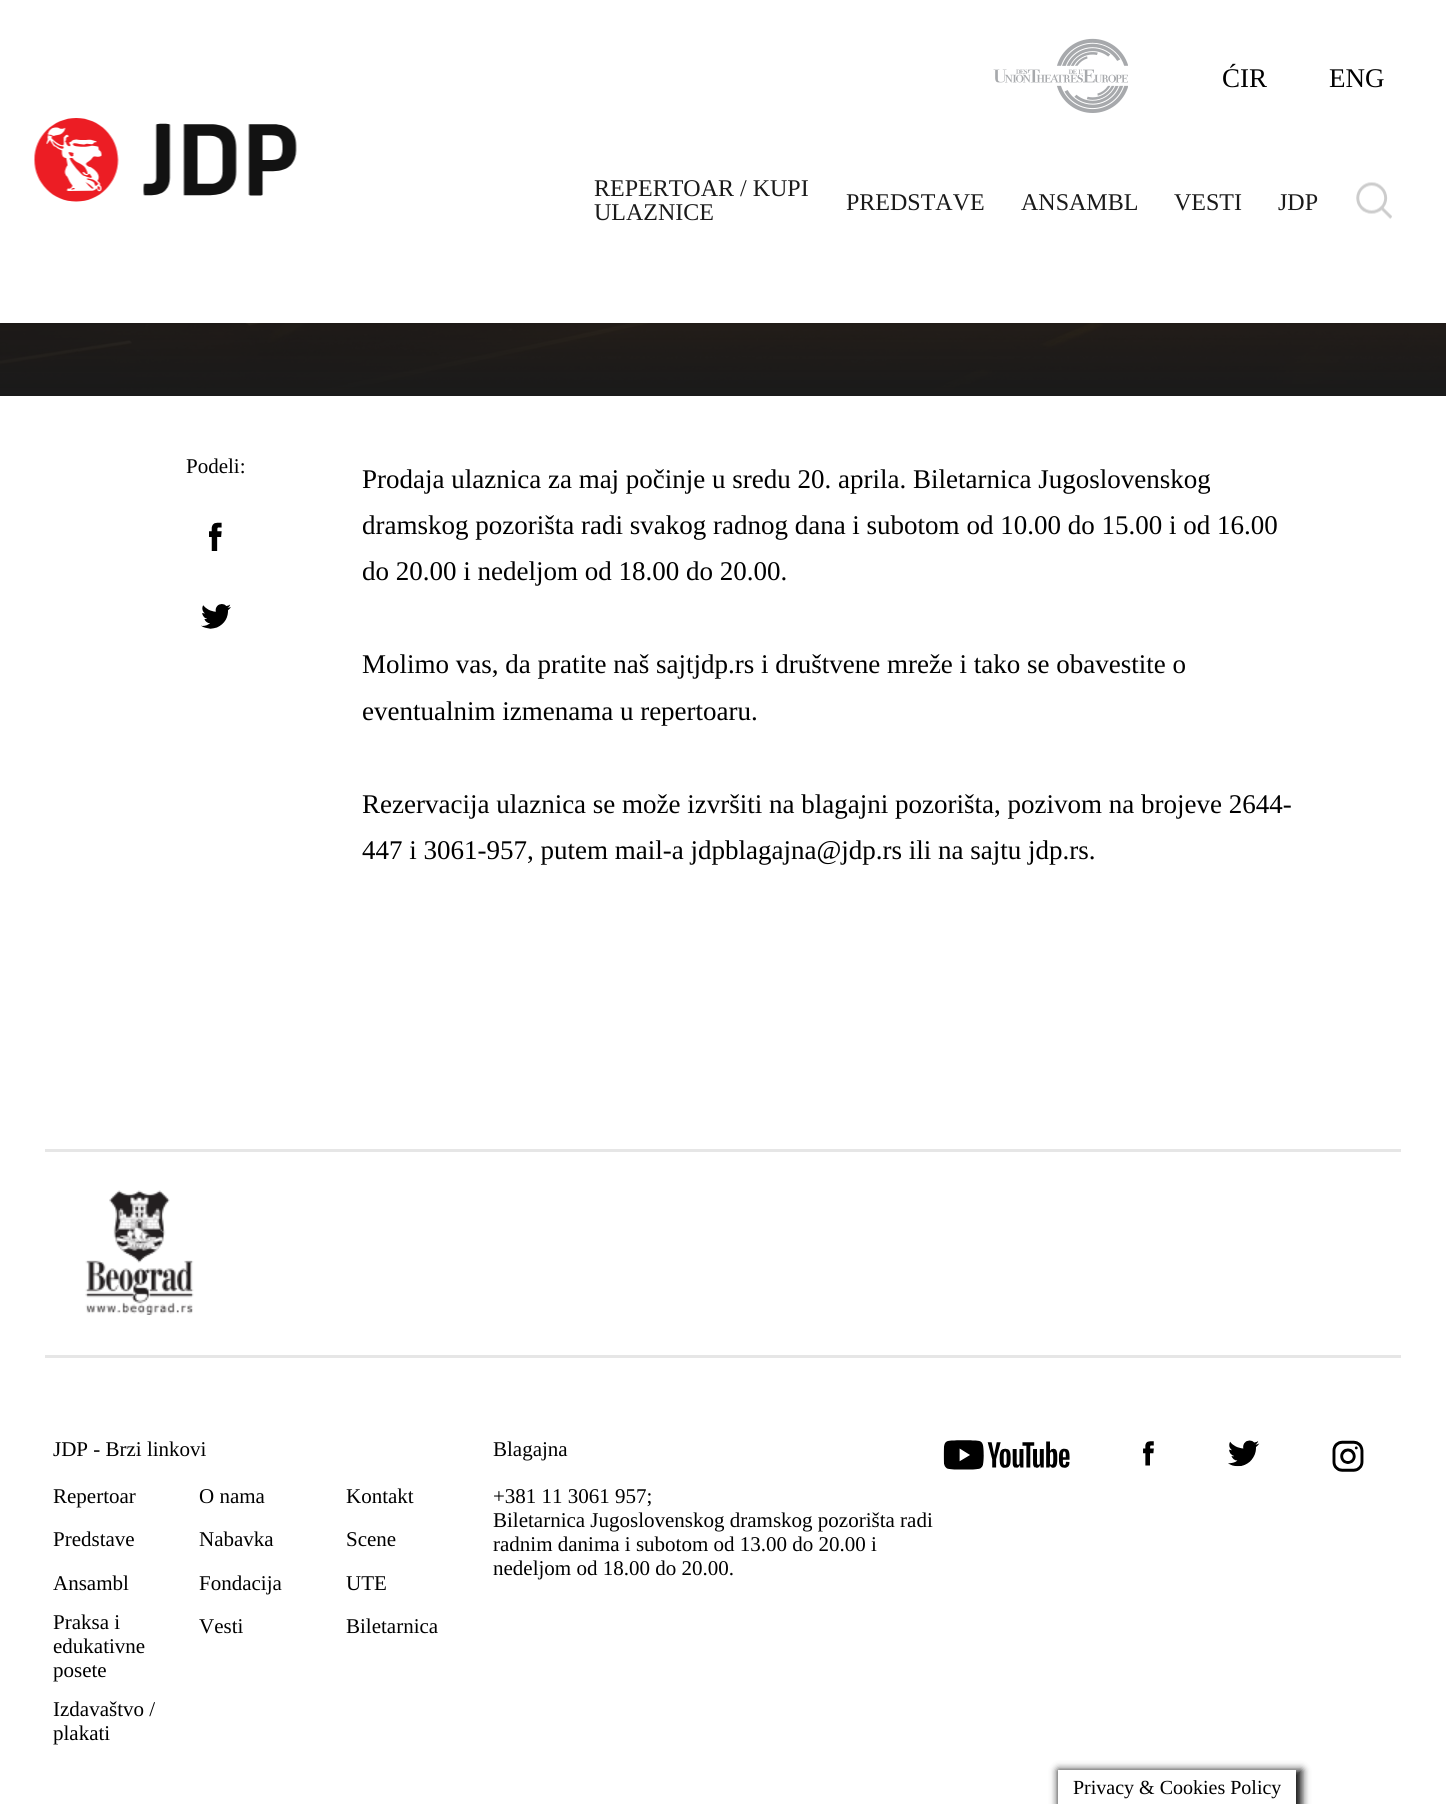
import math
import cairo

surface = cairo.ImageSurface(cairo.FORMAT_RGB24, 1446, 1804)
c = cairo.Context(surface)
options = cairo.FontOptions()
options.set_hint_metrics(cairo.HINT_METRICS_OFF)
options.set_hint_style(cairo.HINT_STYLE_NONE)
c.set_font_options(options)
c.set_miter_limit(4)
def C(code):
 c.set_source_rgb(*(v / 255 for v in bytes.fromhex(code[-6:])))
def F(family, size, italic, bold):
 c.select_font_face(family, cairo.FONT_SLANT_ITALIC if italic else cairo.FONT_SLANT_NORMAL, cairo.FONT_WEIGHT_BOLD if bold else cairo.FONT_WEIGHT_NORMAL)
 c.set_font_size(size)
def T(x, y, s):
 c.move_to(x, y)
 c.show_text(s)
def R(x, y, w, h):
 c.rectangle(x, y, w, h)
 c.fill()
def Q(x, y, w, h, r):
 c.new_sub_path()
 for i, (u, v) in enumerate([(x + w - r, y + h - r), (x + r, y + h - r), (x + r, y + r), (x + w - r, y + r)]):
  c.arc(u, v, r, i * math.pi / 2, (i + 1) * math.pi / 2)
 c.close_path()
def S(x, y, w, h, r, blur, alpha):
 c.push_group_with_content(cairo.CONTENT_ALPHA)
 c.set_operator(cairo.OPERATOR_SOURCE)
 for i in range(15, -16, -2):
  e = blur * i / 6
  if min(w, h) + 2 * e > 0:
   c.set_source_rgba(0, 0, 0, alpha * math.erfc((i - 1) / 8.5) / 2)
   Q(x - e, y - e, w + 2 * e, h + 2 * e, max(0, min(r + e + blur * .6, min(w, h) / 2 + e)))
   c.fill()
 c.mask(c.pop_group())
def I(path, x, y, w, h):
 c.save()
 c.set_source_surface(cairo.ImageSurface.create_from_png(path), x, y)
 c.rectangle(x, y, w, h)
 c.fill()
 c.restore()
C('ffffff')
c.paint()
I('4.png',0,323,1446,68)
gradient = cairo.LinearGradient(723,396,723,-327)
gradient.add_color_stop_rgba(0,0.102,0.102,0.102,1)
gradient.add_color_stop_rgba(1,0,0,0,.19)
c.set_source(gradient)
R(0,323,1446,73)
C('000000')
S(0,3,1446,323,0,3,.09)
C('ffffff')
R(0,0,1446,323)
I('1.png',993,38,135,75)
F('Liberation Serif',27,0,0)
C('000000')
T(1222,87,'ĆIR')
T(1329,87,'ENG')
I('2.png',34,118,263,84)
F('Liberation Serif',24,0,0)
C('1a1a1a')
T(594,196,'REPERTOAR / KUPI')
T(594,220,'ULAZNICE')
T(846,210,'PREDSTAVE')
T(1021,210,'ANSAMBL')
T(1174,210,'VESTI')
T(1278,210,'JDP')
I('3.png',1356,182,36,37)
F('Liberation Serif',21,0,0)
C('000000')
T(186,473,'Podeli:')
I('5.png',209,522,13,29)
I('6.png',201,604,30,25)
F('Liberation Serif',27,0,0)
T(362,488,'Prodaja ulaznica za maj počinje u sredu 20. aprila. Biletarnica Jugoslovenskog')
T(362,534,'dramskog pozorišta radi svakog radnog dana i subotom od 10.00 do 15.00 i od 16.00')
T(362,580,'do 20.00 i nedeljom od 18.00 do 20.00.')
T(362,673,'Molimo vas, da pratite naš sajtjdp.rs i društvene mreže i tako se obavestite o')
T(362,720,'eventualnim izmenama u repertoaru.')
T(362,813,'Rezervacija ulaznica se može izvršiti na blagajni pozorišta, pozivom na brojeve 2644-')
T(362,859,'447 i 3061-957, putem mail-a jdpblagajna@jdp.rs ili na sajtu jdp.rs.')
C('e6e6e6')
R(45,1149,1356,3)
R(45,1355,1356,3)
I('7.png',85,1190,109,125)
F('Liberation Serif',21,0,0)
C('000000')
T(53,1456,'JDP - Brzi linkovi')
T(53,1503,'Repertoar')
T(199,1503,'O nama')
T(346,1503,'Kontakt')
T(53,1546,'Predstave')
T(199,1546,'Nabavka')
T(346,1546,'Scene')
T(53,1590,'Ansambl')
T(199,1590,'Fondacija')
T(346,1590,'UTE')
T(53,1629,'Praksa i')
T(53,1653,'edukativne')
T(53,1677,'posete')
T(199,1633,'Vesti')
T(346,1633,'Biletarnica')
T(53,1716,'Izdavaštvo /')
T(53,1740,'plakati')
T(493,1456,'Blagajna')
T(493,1503,'+381 11 3061 957;')
T(493,1527,'Biletarnica Jugoslovenskog dramskog pozorišta radi')
T(493,1551,'radnim danima i subotom od 13.00 do 20.00 i')
T(493,1575,'nedeljom od 18.00 do 20.00.')
I('8.png',943,1440,127,30)
I('9.png',1143,1441,11,25)
I('10.png',1228,1440,32,27)
I('11.png',1332,1440,32,32)
c.save()
c.set_fill_rule(cairo.FILL_RULE_EVEN_ODD)
c.new_path()
c.move_to(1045,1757)
c.line_to(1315,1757)
c.line_to(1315,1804)
c.line_to(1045,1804)
c.close_path()
c.move_to(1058,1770)
c.line_to(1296,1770)
c.line_to(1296,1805)
c.line_to(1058,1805)
c.close_path()
c.clip()
C('161616')
S(1058,1770,244,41,0,4,1)
c.restore()
F('Liberation Serif',20,0,0)
T(1073,1794,'Privacy & Cookies Policy')
surface.write_to_png('o.png')
